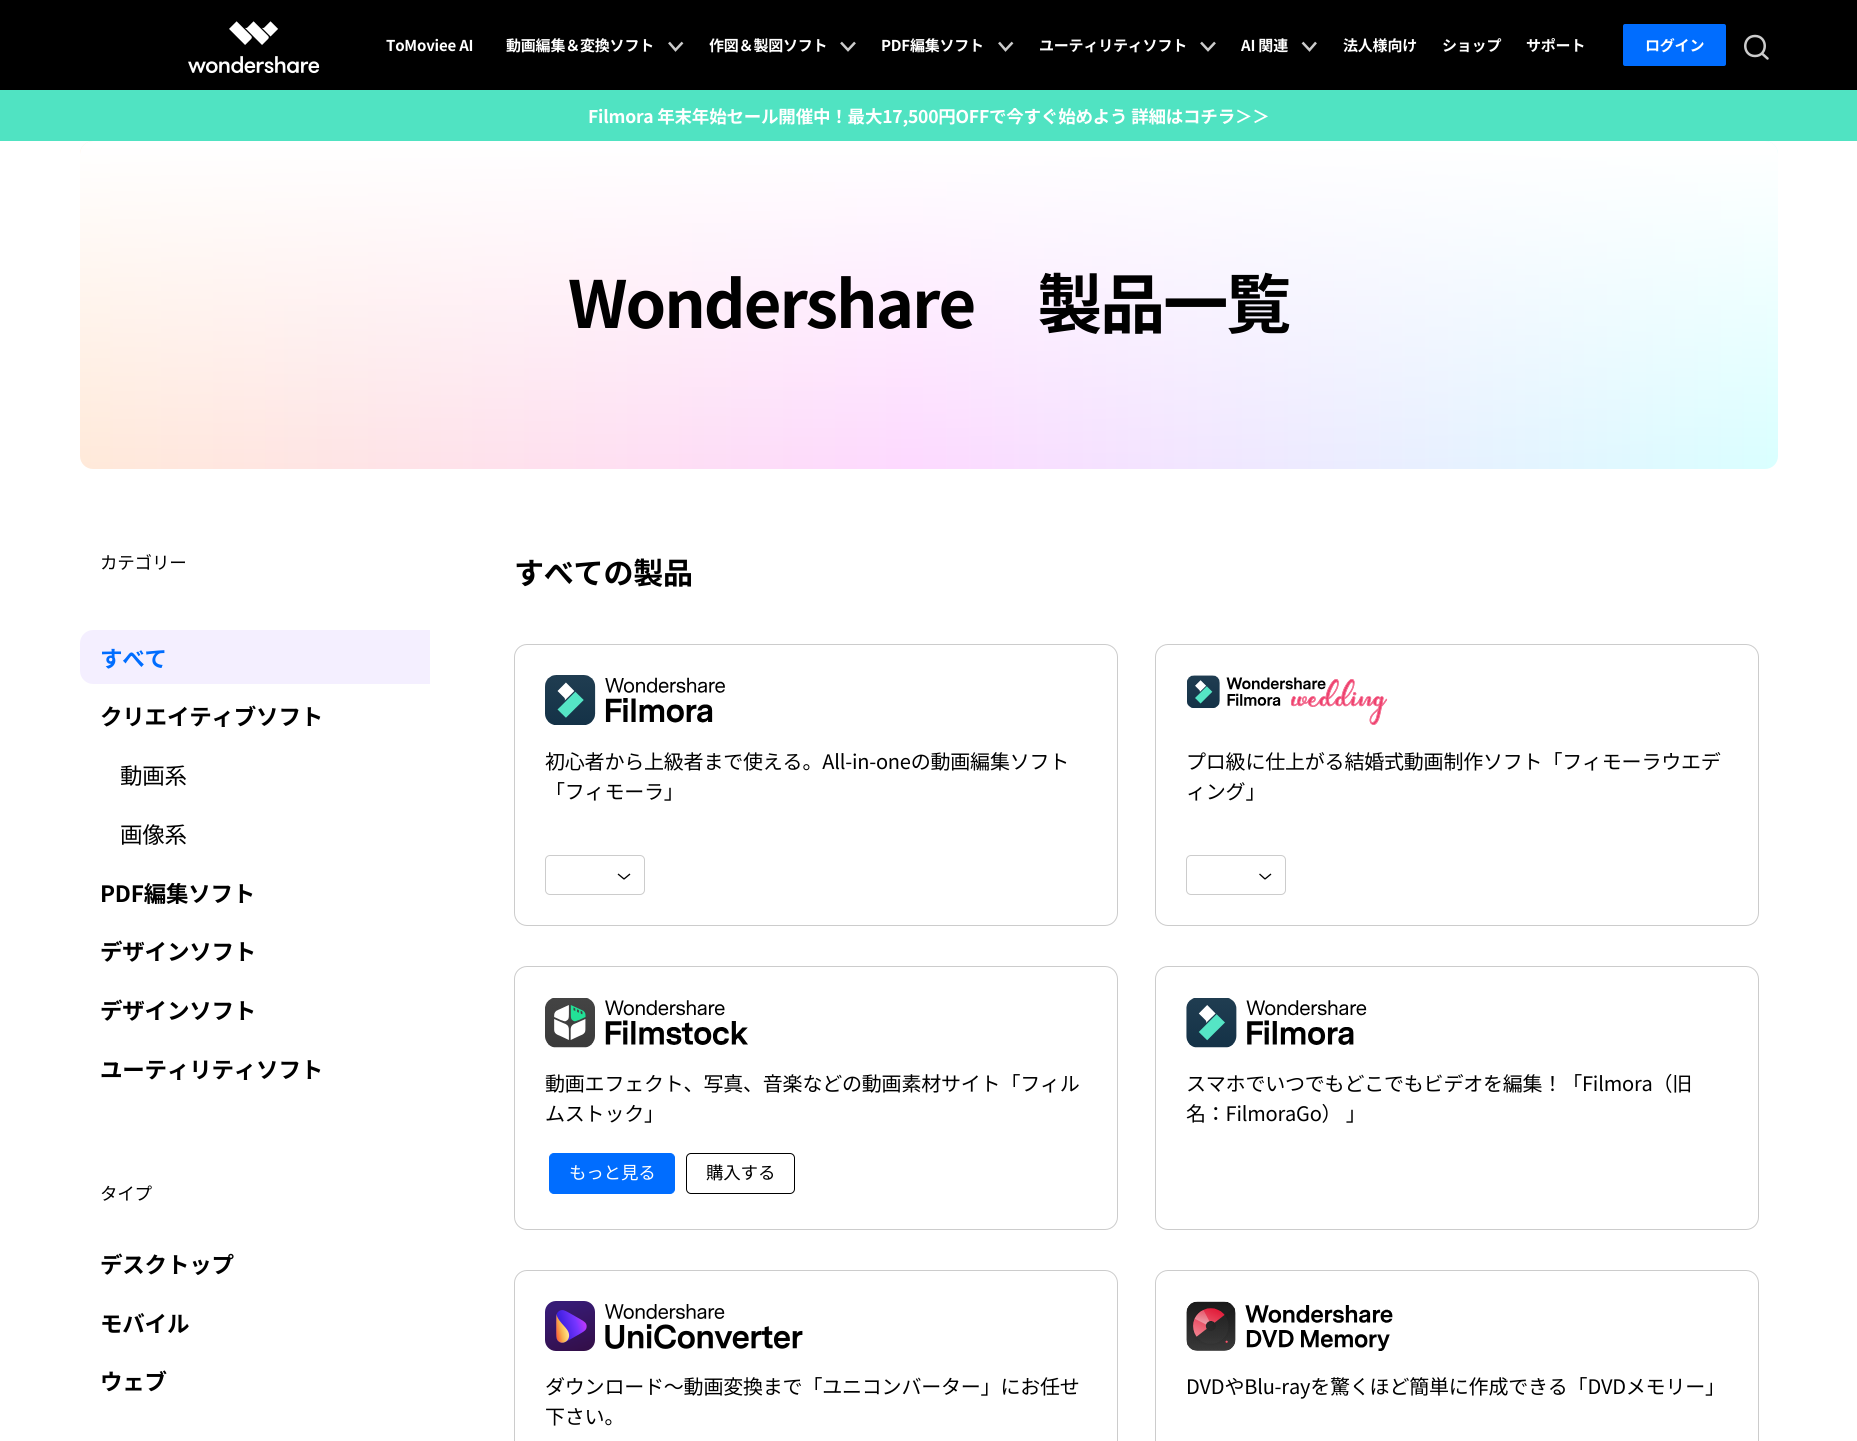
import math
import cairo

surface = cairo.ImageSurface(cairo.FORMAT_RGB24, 1857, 1441)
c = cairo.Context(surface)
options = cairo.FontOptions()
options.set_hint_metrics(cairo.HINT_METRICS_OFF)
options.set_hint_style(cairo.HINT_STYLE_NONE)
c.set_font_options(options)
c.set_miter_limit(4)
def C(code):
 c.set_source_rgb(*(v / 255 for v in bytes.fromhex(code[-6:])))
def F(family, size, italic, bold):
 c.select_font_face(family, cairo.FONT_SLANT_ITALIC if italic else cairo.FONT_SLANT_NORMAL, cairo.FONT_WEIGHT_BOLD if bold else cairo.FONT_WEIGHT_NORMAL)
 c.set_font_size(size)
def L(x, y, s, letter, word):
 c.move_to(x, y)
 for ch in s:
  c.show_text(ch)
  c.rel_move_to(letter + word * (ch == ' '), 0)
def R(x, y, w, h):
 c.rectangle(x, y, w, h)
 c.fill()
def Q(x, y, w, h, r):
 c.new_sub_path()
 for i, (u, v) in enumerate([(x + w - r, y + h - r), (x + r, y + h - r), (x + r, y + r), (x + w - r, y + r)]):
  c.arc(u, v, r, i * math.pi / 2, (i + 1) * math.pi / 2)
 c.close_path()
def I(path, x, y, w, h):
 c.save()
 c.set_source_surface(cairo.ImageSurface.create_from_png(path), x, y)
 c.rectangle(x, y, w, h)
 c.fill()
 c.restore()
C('ffffff')
c.paint()
C('000000')
R(0,0,1857,90)
I('1.png',188,21,132,53)
F('Noto Sans JP',15,0,1)
C('ffffff')
L(386,51,'ToMoviee AI',-.2,0)
L(506,51,'動画編集＆変換ソフト',-.2,0)
c.new_path()
c.move_to(682.5,42.5)
c.line_to(675.5,50)
c.line_to(669,42.5)
C('cccccc')
c.set_line_width(2.5)
c.stroke()
C('ffffff')
L(709,51,'作図＆製図ソフト',-.2,0)
c.new_path()
c.move_to(855,42.5)
c.line_to(848,50)
c.line_to(841,42.5)
C('cccccc')
c.stroke()
C('ffffff')
L(881,51,'PDF編集ソフト',-.2,0)
c.new_path()
c.move_to(1012.5,42.5)
c.line_to(1005.5,50)
c.line_to(999,42.5)
C('cccccc')
c.stroke()
C('ffffff')
L(1039,51,'ユーティリティソフト',-.2,0)
c.new_path()
c.move_to(1215,42.5)
c.line_to(1208,50)
c.line_to(1201,42.5)
C('cccccc')
c.stroke()
C('ffffff')
L(1241,51,'AI 関連',-.2,0)
c.new_path()
c.move_to(1316,42.5)
c.line_to(1309.5,50)
c.line_to(1302.5,42.5)
C('cccccc')
c.stroke()
C('ffffff')
L(1343,51,'法人様向け',-.2,0)
L(1442,51,'ショップ',-.2,0)
L(1526,51,'サポート',-.2,0)
C('006dff')
Q(1621.5,22.5,106,45,3.5)
c.fill_preserve()
C('000000')
c.set_line_width(3)
c.stroke()
C('ffffff')
L(1645,51,'ログイン',-.2,0)
c.new_path()
c.move_to(1755,56)
c.curve_to(1768,56,1768,36,1755,36)
c.curve_to(1742,36,1742,56,1755,56)
c.close_path()
c.move_to(1767.5,58.5)
c.line_to(1762,53.5)
C('cccccc')
c.set_line_width(2.5)
c.set_line_cap(cairo.LINE_CAP_ROUND)
c.set_line_join(cairo.LINE_JOIN_ROUND)
c.stroke()
C('50e3c2')
R(0,90,1857,51)
F('Noto Sans JP',17.5,0,1)
C('ffffff')
L(588,123,'Filmora 年末年始セール開催中！最大17,500円OFFで今すぐ始めよう 詳細はコチラ＞＞',-.2,0)
gradient = cairo.LinearGradient(1778,305,80,305)
gradient.add_color_stop_rgba(0,0.851,1,1,1)
gradient.add_color_stop_rgba(.51,0.992,0.851,1,1)
gradient.add_color_stop_rgba(1,1,0.914,0.851,1)
c.set_source(gradient)
Q(80,141,1698,328,13)
c.fill()
gradient = cairo.LinearGradient(929,141,929,469)
gradient.add_color_stop_rgba(0,1,1,1,1)
gradient.add_color_stop_rgba(1,1,1,1,0)
c.set_source(gradient)
Q(80,141,1698,328,13)
c.fill()
F('Noto Sans JP',65,0,1)
C('000000')
L(568,328,'Wondershare　製品一覧',-2,0)
F('Noto Sans JP',17.5,0,0)
L(100,569,'カテゴリー',-.2,0)
C('f4efff')
c.new_path()
c.move_to(93,630)
c.line_to(430,630)
c.line_to(430,684)
c.line_to(93,684)
c.curve_to(86,684,80,678,80,671)
c.line_to(80,643)
c.curve_to(80,636,86,630,93,630)
c.close_path()
c.fill()
F('Noto Sans JP',22.5,0,1)
C('006dff')
L(100,667,'すべて',-.2,0)
C('000000')
L(100,725,'クリエイティブソフト',-.2,0)
F('Noto Sans JP',22.5,0,0)
L(120,784,'動画系',-.2,0)
L(120,843,'画像系',-.2,0)
F('Noto Sans JP',22.5,0,1)
L(100,902,'PDF編集ソフト',-.2,0)
L(100,960,'デザインソフト',-.2,0)
L(100,1019,'デザインソフト',-.2,0)
L(100,1078,'ユーティリティソフト',-.2,0)
F('Noto Sans JP',17.5,0,0)
L(100,1200,'タイプ',-.2,0)
F('Noto Sans JP',22.5,0,1)
L(100,1273,'デスクトップ',-.2,0)
L(100,1332,'モバイル',-.2,0)
L(100,1390,'ウェブ',-.2,0)
F('Noto Sans JP',30,0,1)
L(514,584,'すべての製品',-.2,0)
Q(514.5,644.5,603,281,12.5)
C('cccccc')
c.set_line_width(1)
c.set_line_cap(cairo.LINE_CAP_BUTT)
c.set_line_join(cairo.LINE_JOIN_MITER)
c.stroke()
I('2.png',545,675,180,50)
F('Noto Sans JP',20,0,0)
C('000000')
L(545,769,'初心者から上級者まで使える。All-in-oneの動画編集ソフト',-.2,0)
L(545,799,'「フィモーラ」',-.2,0)
Q(545.5,855.5,99,39,4.5)
C('cccccc')
c.stroke()
c.new_path()
c.move_to(630,874)
c.line_to(624,879)
c.line_to(618,874)
C('000000')
c.set_line_width(1.3)
c.set_line_join(cairo.LINE_JOIN_BEVEL)
c.stroke()
Q(1155.5,644.5,603,281,12.5)
C('cccccc')
c.set_line_width(1)
c.set_line_join(cairo.LINE_JOIN_MITER)
c.stroke()
I('3.png',1187,675,201,50)
C('000000')
L(1186,769,'プロ級に仕上がる結婚式動画制作ソフト「フィモーラウエデ',-.2,0)
L(1186,799,'ィング」',-.2,0)
Q(1186.5,855.5,99,39,4.5)
C('cccccc')
c.stroke()
c.new_path()
c.move_to(1271,874)
c.line_to(1265,879)
c.line_to(1259.5,874)
C('000000')
c.set_line_width(1.3)
c.set_line_join(cairo.LINE_JOIN_BEVEL)
c.stroke()
Q(514.5,966.5,603,263,12.5)
C('cccccc')
c.set_line_width(1)
c.set_line_join(cairo.LINE_JOIN_MITER)
c.stroke()
I('4.png',545,998,203,50)
C('000000')
L(545,1091,'動画エフェクト、写真、音楽などの動画素材サイト「フィル',-.2,0)
L(545,1121,'ムストック」',-.2,0)
C('006dff')
Q(549.5,1153.5,125,40,4.5)
c.fill_preserve()
c.stroke()
F('Noto Sans JP',17.5,0,0)
C('ffffff')
L(569,1179,'もっと見る',-.2,0)
Q(686.5,1153.5,108,40,4.5)
C('000000')
c.stroke()
L(706,1179,'購入する',-.2,0)
Q(1155.5,966.5,603,263,12.5)
C('cccccc')
c.stroke()
I('5.png',1186,998,181,50)
F('Noto Sans JP',20,0,0)
C('000000')
L(1186,1091,'スマホでいつでもどこでもビデオを編集！「Filmora（旧',-.2,0)
L(1186,1121,'名：FilmoraGo） 」',-.2,0)
Q(514.5,1270.5,603,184,12.5)
C('cccccc')
c.stroke()
I('6.png',545,1301,258,50)
C('000000')
L(545,1394,'ダウンロード～動画変換まで「ユニコンバーター」にお任せ',-.2,0)
L(545,1424,'下さい。',-.2,0)
Q(1155.5,1270.5,603,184,12.5)
C('cccccc')
c.stroke()
I('7.png',1186,1301,207,50)
C('000000')
L(1186,1394,'DVDやBlu-rayを驚くほど簡単に作成できる「DVDメモリー」',-.2,0)
surface.write_to_png('o.png')
